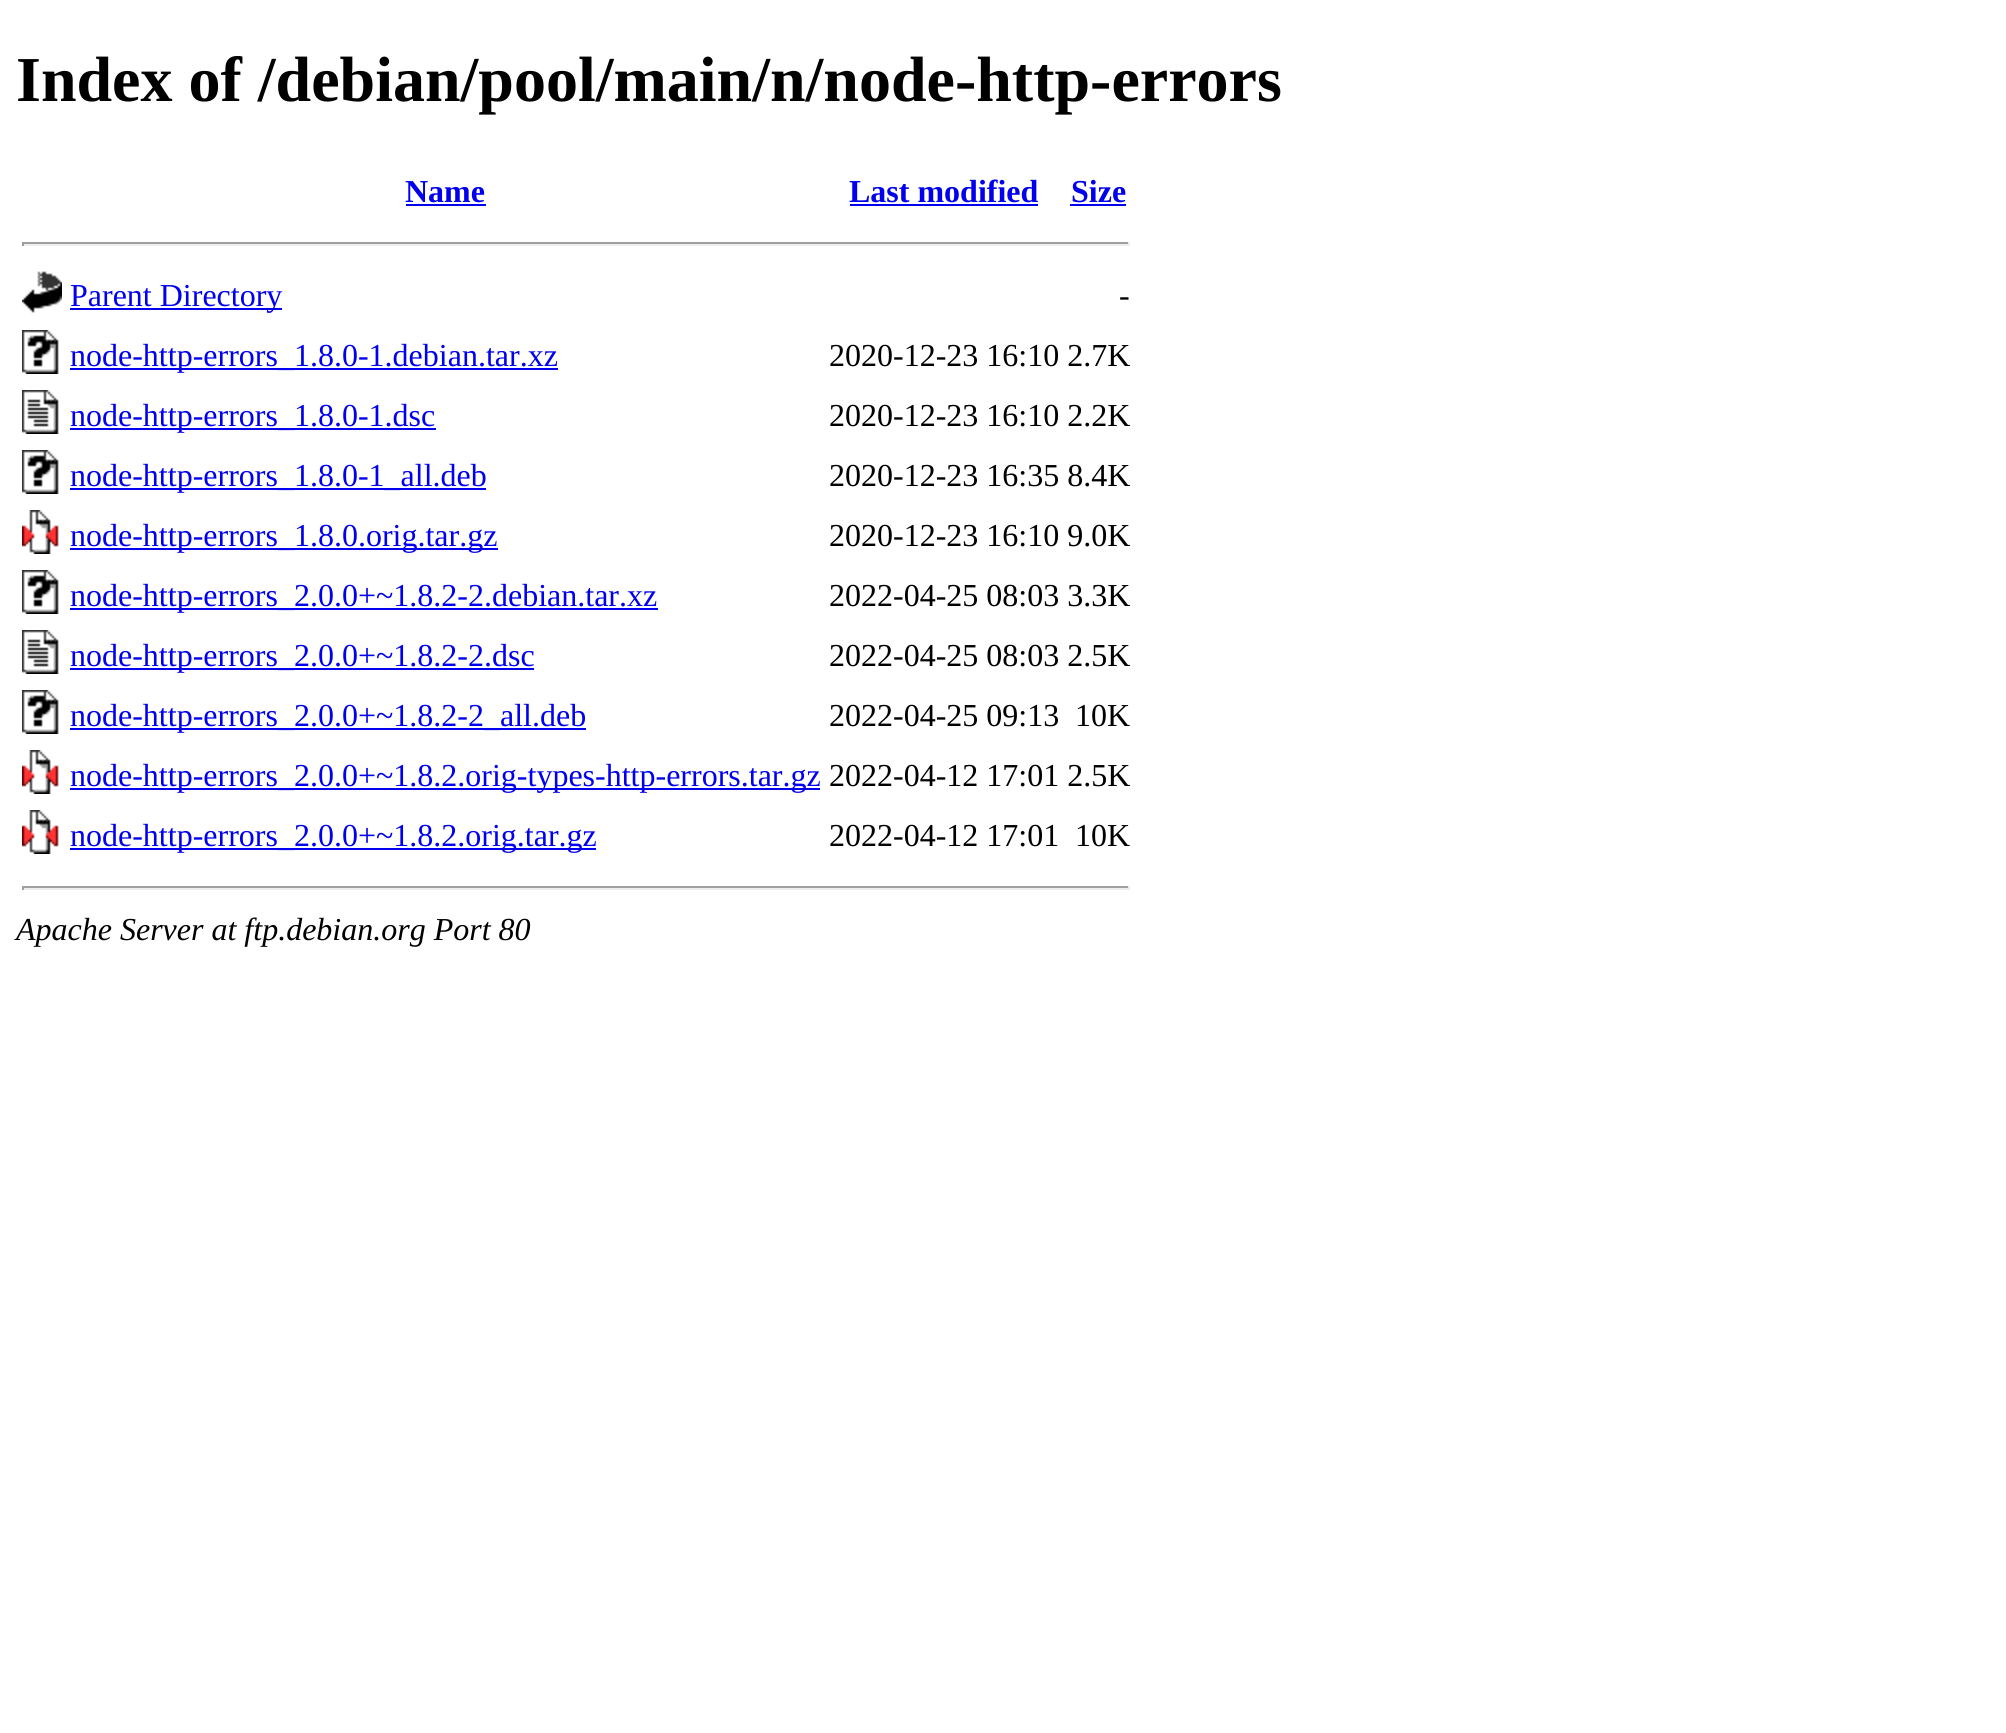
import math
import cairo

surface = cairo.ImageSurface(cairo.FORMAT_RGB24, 2006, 1733)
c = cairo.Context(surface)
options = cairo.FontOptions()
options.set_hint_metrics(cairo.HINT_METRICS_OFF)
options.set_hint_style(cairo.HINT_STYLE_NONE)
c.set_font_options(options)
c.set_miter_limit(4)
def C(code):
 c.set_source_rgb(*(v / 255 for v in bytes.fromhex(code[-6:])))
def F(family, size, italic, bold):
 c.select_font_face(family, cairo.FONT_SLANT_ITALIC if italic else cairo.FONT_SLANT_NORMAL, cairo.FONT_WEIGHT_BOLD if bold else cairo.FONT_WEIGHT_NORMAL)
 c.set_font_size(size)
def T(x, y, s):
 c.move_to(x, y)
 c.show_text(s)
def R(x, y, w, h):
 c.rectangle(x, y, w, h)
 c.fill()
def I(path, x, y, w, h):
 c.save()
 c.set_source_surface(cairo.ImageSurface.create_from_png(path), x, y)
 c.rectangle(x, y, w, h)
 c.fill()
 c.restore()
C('ffffff')
c.paint()
F('Liberation Serif',64,0,1)
C('000000')
T(16,101,'Index of /debian/pool/main/n/node-http-errors')
F('Liberation Serif',32,0,1)
C('0000ee')
T(405,202,'Name')
R(406,204,80,2)
T(849,202,'Last modified')
R(850,204,188,2)
T(1071,202,'Size')
R(1070,204,56,2)
C('9f9f9f')
R(22,242,1108,2)
C('eeeeee')
R(1128,242,2,4)
R(22,244,1108,2)
C('9f9f9f')
R(22,242,2,4)
I('1.png',22,271,40,42)
C('0000ee')
R(70,308,212,2)
F('Liberation Serif',32,0,0)
T(70,306,'Parent Directory')
C('000000')
T(1119,306,'-')
I('2.png',22,330,37,44)
C('0000ee')
R(70,368,488,2)
T(70,366,'node-http-errors_1.8.0-1.debian.tar.xz')
C('000000')
T(829,366,'2020-12-23 16:10 2.7K')
I('3.png',22,390,37,44)
C('0000ee')
R(70,428,366,2)
T(70,426,'node-http-errors_1.8.0-1.dsc')
C('000000')
T(829,426,'2020-12-23 16:10 2.2K')
I('2.png',22,450,37,44)
C('0000ee')
R(70,488,416,2)
T(70,486,'node-http-errors_1.8.0-1_all.deb')
C('000000')
T(829,486,'2020-12-23 16:35 8.4K')
I('4.png',22,510,37,44)
C('0000ee')
R(70,548,428,2)
T(70,546,'node-http-errors_1.8.0.orig.tar.gz')
C('000000')
T(829,546,'2020-12-23 16:10 9.0K')
I('2.png',22,570,37,44)
C('0000ee')
R(70,608,588,2)
T(70,606,'node-http-errors_2.0.0+~1.8.2-2.debian.tar.xz')
C('000000')
T(829,606,'2022-04-25 08:03 3.3K')
I('3.png',22,630,37,44)
C('0000ee')
R(70,668,464,2)
T(70,666,'node-http-errors_2.0.0+~1.8.2-2.dsc')
C('000000')
T(829,666,'2022-04-25 08:03 2.5K')
I('2.png',22,690,37,44)
C('0000ee')
R(70,728,516,2)
T(70,726,'node-http-errors_2.0.0+~1.8.2-2_all.deb')
C('000000')
T(829,726,'2022-04-25 09:13')
T(1075,726,'10K')
I('4.png',22,750,37,44)
C('0000ee')
R(70,788,750,2)
T(70,786,'node-http-errors_2.0.0+~1.8.2.orig-types-http-errors.tar.gz')
C('000000')
T(829,786,'2022-04-12 17:01 2.5K')
I('4.png',22,810,37,44)
C('0000ee')
R(70,848,526,2)
T(70,846,'node-http-errors_2.0.0+~1.8.2.orig.tar.gz')
C('000000')
T(829,846,'2022-04-12 17:01')
T(1075,846,'10K')
C('9f9f9f')
R(22,886,1108,2)
C('eeeeee')
R(1128,886,2,4)
R(22,888,1108,2)
C('9f9f9f')
R(22,886,2,4)
F('Liberation Serif',32,1,0)
C('000000')
T(16,940,'Apache Server at ftp.debian.org Port 80')
surface.write_to_png('o.png')
